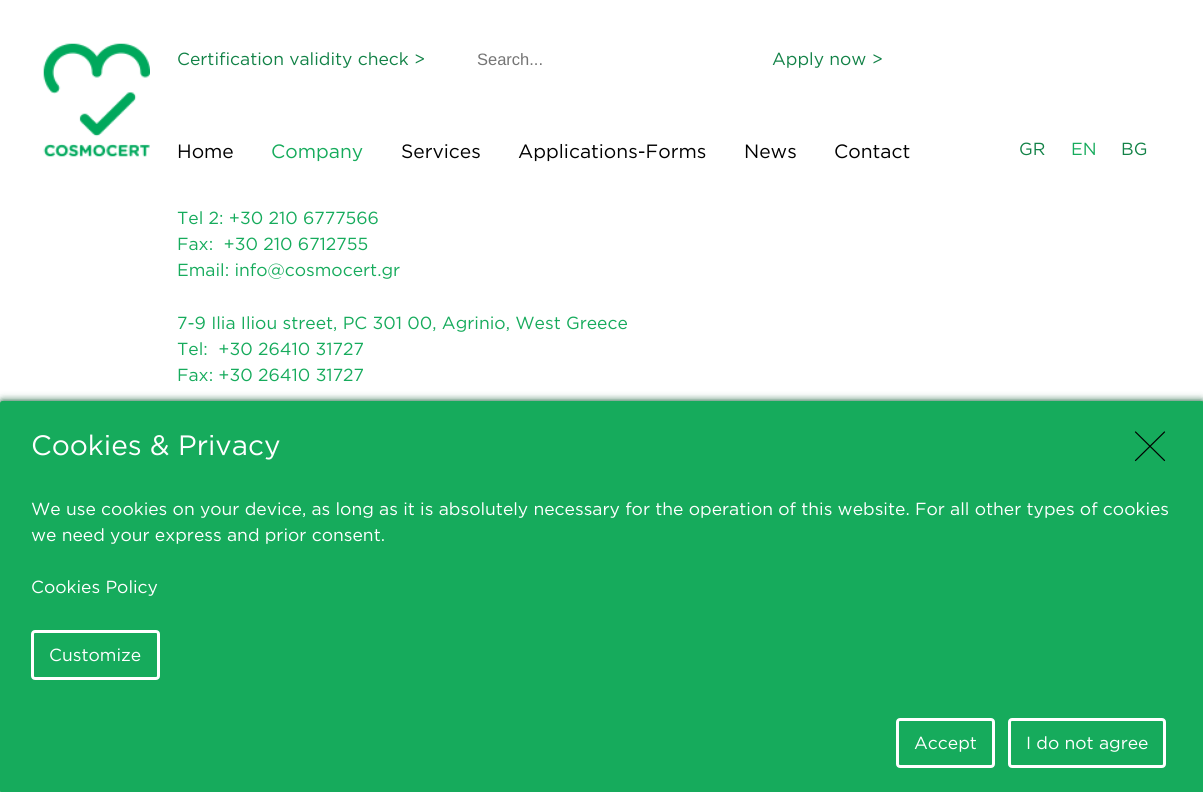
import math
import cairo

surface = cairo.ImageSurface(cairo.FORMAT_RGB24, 1203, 792)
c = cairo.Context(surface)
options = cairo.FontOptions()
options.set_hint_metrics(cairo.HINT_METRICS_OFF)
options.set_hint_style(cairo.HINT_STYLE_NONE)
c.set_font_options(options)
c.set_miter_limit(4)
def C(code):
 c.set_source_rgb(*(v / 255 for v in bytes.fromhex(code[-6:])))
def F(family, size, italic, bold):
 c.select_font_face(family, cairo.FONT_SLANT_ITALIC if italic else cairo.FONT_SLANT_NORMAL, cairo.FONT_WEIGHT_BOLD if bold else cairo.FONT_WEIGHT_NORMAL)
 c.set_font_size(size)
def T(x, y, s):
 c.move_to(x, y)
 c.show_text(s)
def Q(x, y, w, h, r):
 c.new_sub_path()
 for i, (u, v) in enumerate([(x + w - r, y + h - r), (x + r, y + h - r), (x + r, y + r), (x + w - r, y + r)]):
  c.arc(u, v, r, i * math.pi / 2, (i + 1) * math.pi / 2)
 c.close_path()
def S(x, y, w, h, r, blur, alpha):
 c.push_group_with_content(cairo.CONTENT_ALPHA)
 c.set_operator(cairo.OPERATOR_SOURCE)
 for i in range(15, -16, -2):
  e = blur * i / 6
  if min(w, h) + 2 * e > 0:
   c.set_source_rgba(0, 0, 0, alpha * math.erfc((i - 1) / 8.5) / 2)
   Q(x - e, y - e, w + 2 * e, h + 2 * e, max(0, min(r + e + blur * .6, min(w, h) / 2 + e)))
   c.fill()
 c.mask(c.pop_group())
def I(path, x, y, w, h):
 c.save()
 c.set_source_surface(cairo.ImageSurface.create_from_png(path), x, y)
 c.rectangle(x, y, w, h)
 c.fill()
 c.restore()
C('ffffff')
c.paint()
I('1.png',43,43,107,114)
F('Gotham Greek',17.5,0,0)
C('128247')
T(177,65,'Certification validity check >')
F('Liberation Sans',16.5,0,0)
C('757575')
T(477,65,'Search...')
F('Gotham Greek',17.5,0,0)
C('128247')
T(772,65,'Apply now >')
F('Gotham Greek',19.25,0,0)
C('000000')
T(177,158,'Home')
C('16ab5c')
T(271,158,'Company')
C('000000')
T(401,158,'Services')
T(518,158,'Applications-Forms')
T(744,158,'News')
T(834,158,'Contact')
F('Gotham Greek',17.5,0,0)
C('128247')
T(1019,155,'GR')
C('16ab5c')
T(1071,155,'EN')
C('128247')
T(1121,155,'BG')
C('16ab5c')
T(177,224,'Tel 2: +30 210 6777566')
T(177,250,'Fax:  +30 210 6712755')
T(177,276,'Email: info@cosmocert.gr')
T(177,329,'7-9 Ilia Iliou street, PC 301 00, Agrinio, West Greece')
T(177,355,'Tel:  +30 26410 31727')
T(177,381,'Fax: +30 26410 31727')
C('004e25')
S(0,401,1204,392,2.5,4,1)
C('16ab5c')
Q(0,401,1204,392,2.5)
c.fill()
c.new_path()
c.move_to(1135.5,432)
c.line_to(1164.5,460.5)
c.move_to(1164.5,432)
c.line_to(1135.5,460.5)
C('000000')
c.set_line_width(1.2)
c.set_line_cap(cairo.LINE_CAP_ROUND)
c.set_line_join(cairo.LINE_JOIN_ROUND)
c.stroke()
F('Gotham Greek',28,0,0)
C('ffffff')
T(31,455,'Cookies & Privacy')
F('Gotham Greek',17.5,0,0)
T(31,515,'We use cookies on your device, as long as it is absolutely necessary for the operation of this website. For all other types of cookies')
T(31,541,'we need your express and prior consent.')
T(31,593,'Cookies Policy')
Q(32.5,631.5,126,47,2.5)
c.set_line_width(3)
c.set_line_cap(cairo.LINE_CAP_BUTT)
c.set_line_join(cairo.LINE_JOIN_MITER)
c.stroke()
T(49,661,'Customize')
Q(897.5,719.5,96,47,2.5)
c.stroke()
T(914,749,'Accept')
Q(1009.5,719.5,155,47,2.5)
c.stroke()
T(1026,749,'I do not agree')
surface.write_to_png('o.png')
